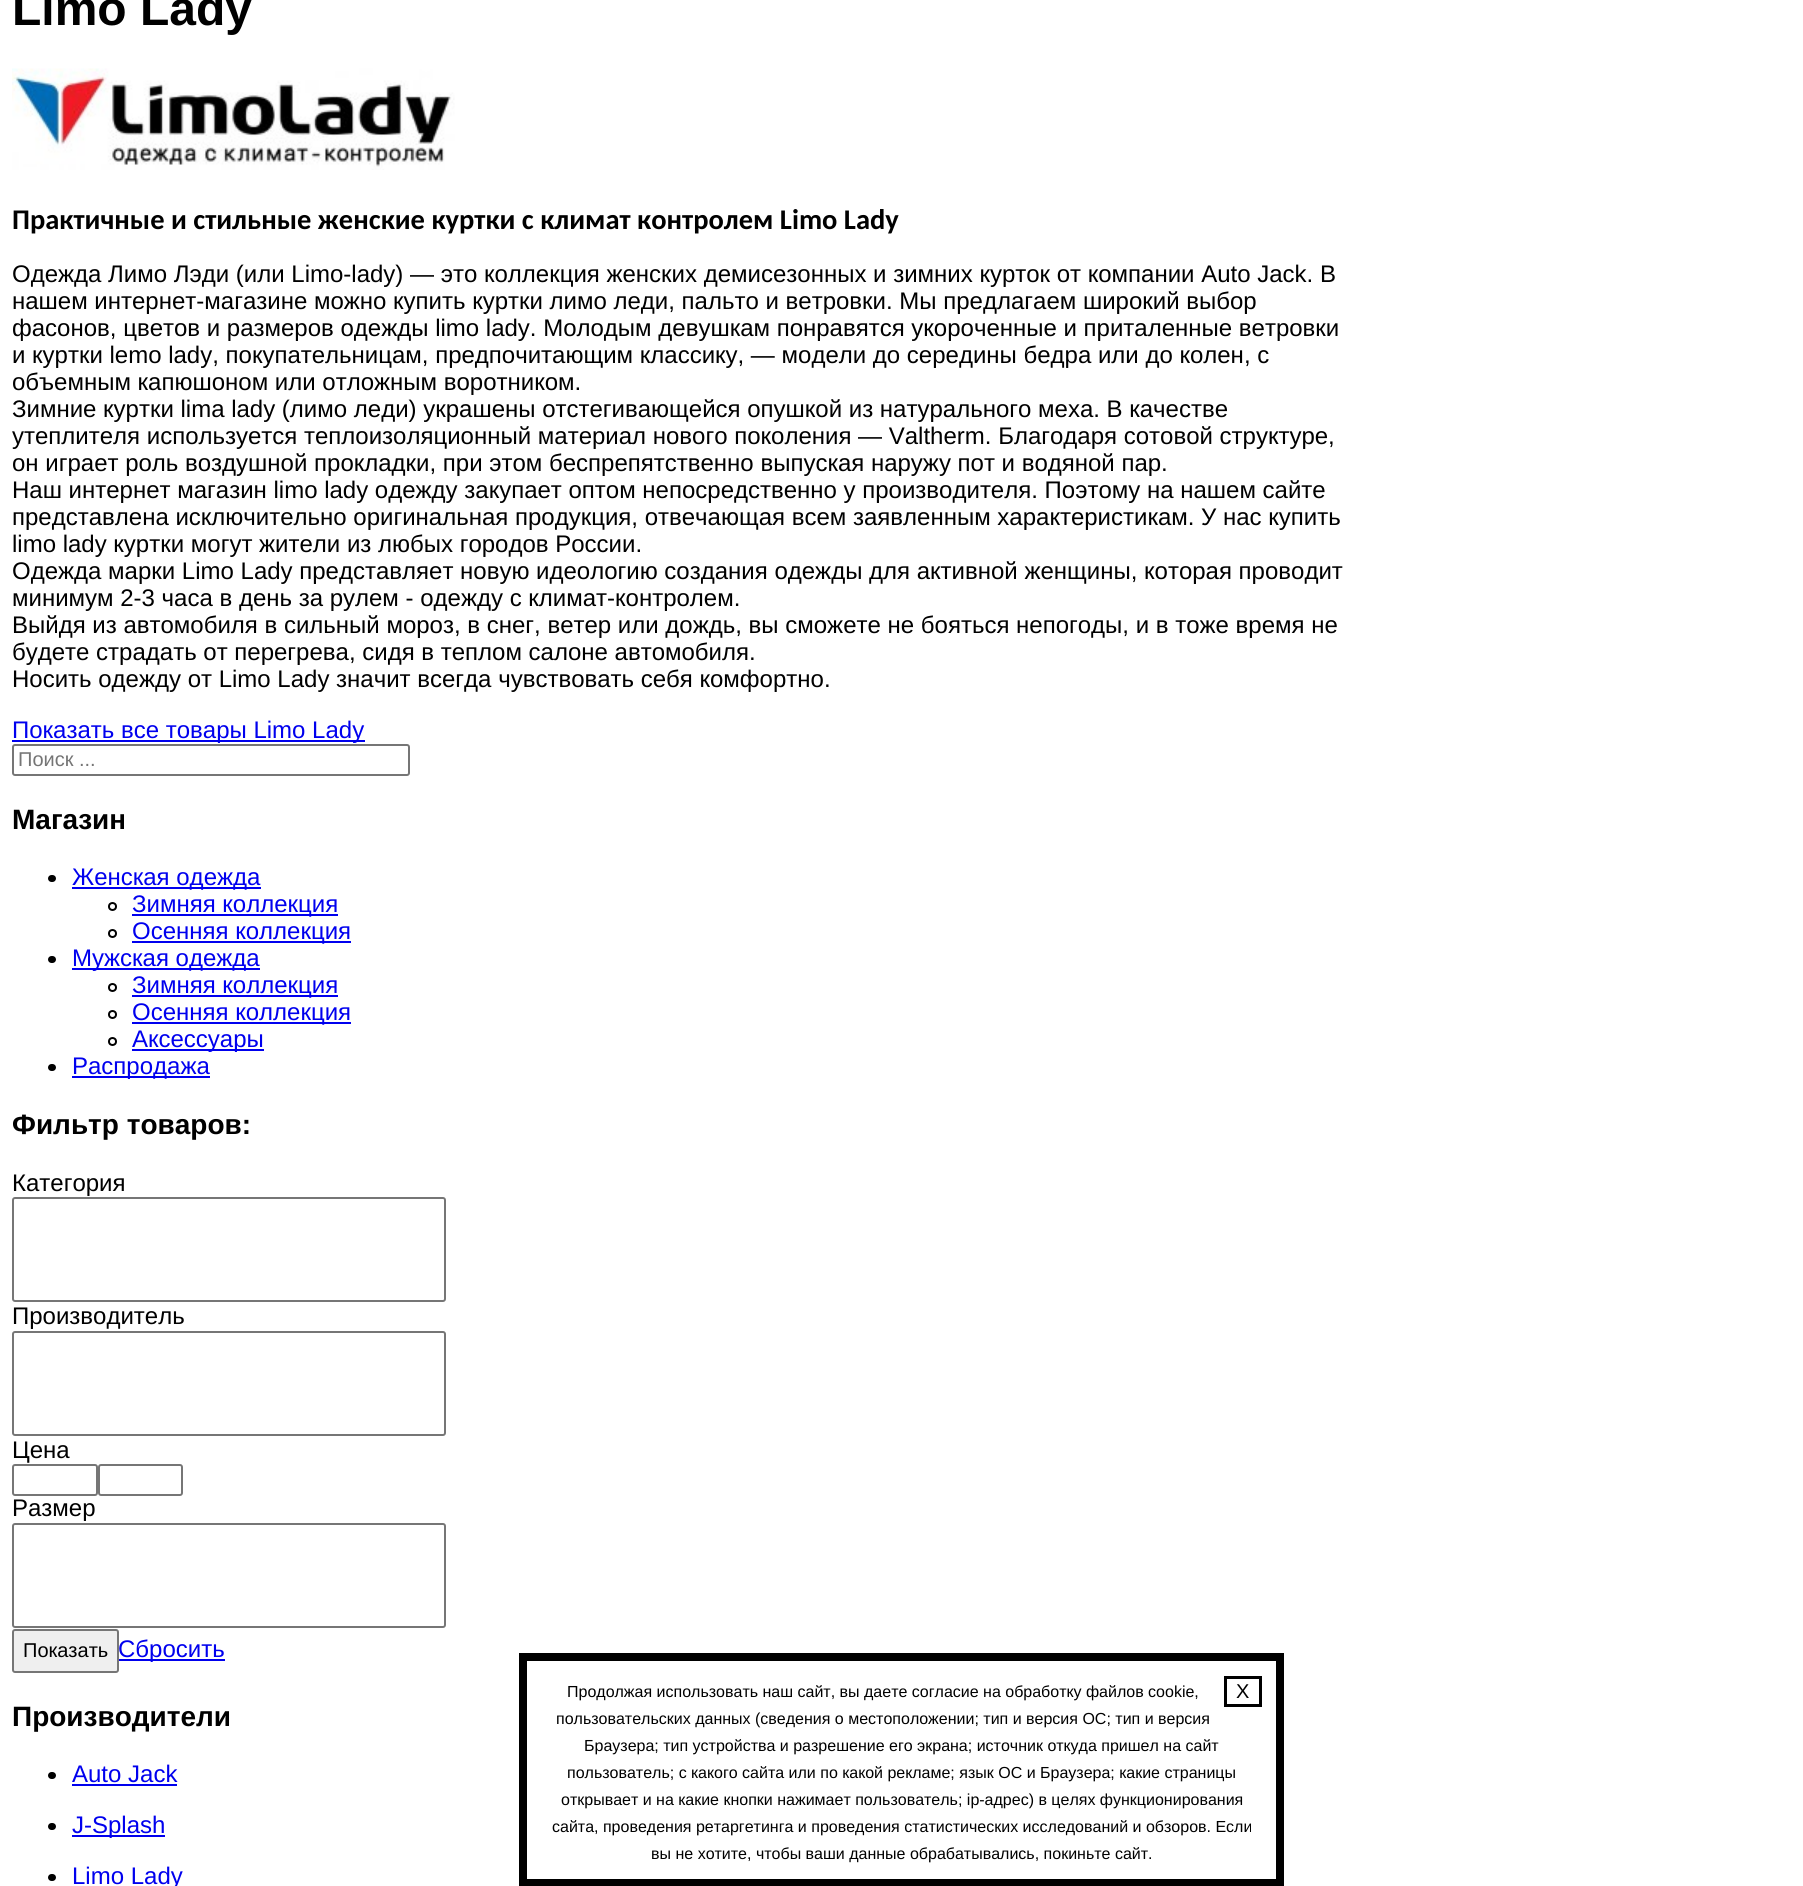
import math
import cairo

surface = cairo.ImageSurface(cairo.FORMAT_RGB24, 1803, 1886)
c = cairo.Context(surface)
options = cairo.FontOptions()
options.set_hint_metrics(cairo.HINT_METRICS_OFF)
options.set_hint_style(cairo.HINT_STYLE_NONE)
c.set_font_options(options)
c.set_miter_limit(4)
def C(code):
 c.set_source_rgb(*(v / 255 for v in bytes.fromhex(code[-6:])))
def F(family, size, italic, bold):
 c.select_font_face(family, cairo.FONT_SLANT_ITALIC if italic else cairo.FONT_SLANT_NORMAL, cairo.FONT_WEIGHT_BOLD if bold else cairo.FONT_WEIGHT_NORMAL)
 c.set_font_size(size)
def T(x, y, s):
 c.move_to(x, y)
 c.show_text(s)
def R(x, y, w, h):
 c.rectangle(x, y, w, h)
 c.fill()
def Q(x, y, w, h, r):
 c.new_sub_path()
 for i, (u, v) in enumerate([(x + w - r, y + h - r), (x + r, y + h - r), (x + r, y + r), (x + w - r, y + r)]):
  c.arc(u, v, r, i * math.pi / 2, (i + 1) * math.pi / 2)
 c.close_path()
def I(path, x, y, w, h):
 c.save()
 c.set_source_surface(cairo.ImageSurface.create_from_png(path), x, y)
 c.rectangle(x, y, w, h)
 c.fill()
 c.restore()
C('ffffff')
c.paint()
F('Liberation Sans',48,0,1)
C('000000')
T(12,25,'Limo Lady')
I('1.png',12,68,443,102)
F('Carlito',28.5,0,1)
T(12,229,'Практичные и стильные женские куртки с климат контролем Limo Lady')
F('Liberation Sans',24,0,0)
T(12,282,'Одежда Лимо Лэди (или Limo-lady) — это коллекция женских демисезонных и зимних курток от компании Auto Jack. В')
T(12,309,'нашем интернет-магазине можно купить куртки лимо леди, пальто и ветровки. Мы предлагаем широкий выбор')
T(12,336,'фасонов, цветов и размеров одежды limo lady. Молодым девушкам понравятся укороченные и приталенные ветровки')
T(12,363,'и куртки lemo lady, покупательницам, предпочитающим классику, — модели до середины бедра или до колен, с')
T(12,390,'объемным капюшоном или отложным воротником.')
T(12,417,'Зимние куртки lima lady (лимо леди) украшены отстегивающейся опушкой из натурального меха. В качестве')
T(12,444,'утеплителя используется теплоизоляционный материал нового поколения — Valtherm. Благодаря сотовой структуре,')
T(12,471,'он играет роль воздушной прокладки, при этом беспрепятственно выпуская наружу пот и водяной пар.')
T(12,498,'Наш интернет магазин limo lady одежду закупает оптом непосредственно у производителя. Поэтому на нашем сайте')
T(12,525,'представлена исключительно оригинальная продукция, отвечающая всем заявленным характеристикам. У нас купить')
T(12,552,'limo lady куртки могут жители из любых городов России.')
T(12,579,'Одежда марки Limo Lady представляет новую идеологию создания одежды для активной женщины, которая проводит')
T(12,606,'минимум 2-3 часа в день за рулем - одежду с климат-контролем.')
T(12,633,'Выйдя из автомобиля в сильный мороз, в снег, ветер или дождь, вы сможете не бояться непогоды, и в тоже время не')
T(12,660,'будете страдать от перегрева, сидя в теплом салоне автомобиля.')
T(12,687,'Носить одежду от Limo Lady значит всегда чувствовать себя комфортно.')
C('0000ee')
R(12,740,353,2)
T(12,738,'Показать все товары Limo Lady')
Q(13,745,396,30,2)
C('767676')
c.stroke()
F('Liberation Sans',20,0,0)
C('757575')
T(18,766,'Поиск ...')
F('Liberation Sans',28,0,1)
C('000000')
T(12,829,'Магазин')
Q(48,875,8,7,3.5)
c.fill()
C('0000ee')
R(72,887,189,2)
F('Liberation Sans',24,0,0)
T(72,885,'Женская одежда')
c.new_path()
c.arc(112.5,906.5,3.5,0,2 * math.pi)
C('000000')
c.stroke()
C('0000ee')
R(132,914,206,2)
T(132,912,'Зимняя коллекция')
c.new_path()
c.arc(112.5,933.5,3.5,0,2 * math.pi)
C('000000')
c.stroke()
C('0000ee')
R(132,941,219,2)
T(132,939,'Осенняя коллекция')
C('000000')
Q(48,956,8,7,3.5)
c.fill()
C('0000ee')
R(72,968,188,2)
T(72,966,'Мужская одежда')
c.new_path()
c.arc(112.5,987.5,3.5,0,2 * math.pi)
C('000000')
c.stroke()
C('0000ee')
R(132,995,206,2)
T(132,993,'Зимняя коллекция')
c.new_path()
c.arc(112.5,1014.5,3.5,0,2 * math.pi)
C('000000')
c.stroke()
C('0000ee')
R(132,1022,219,2)
T(132,1020,'Осенняя коллекция')
c.new_path()
c.arc(112.5,1041.5,3.5,0,2 * math.pi)
C('000000')
c.stroke()
C('0000ee')
R(132,1049,132,2)
T(132,1047,'Аксессуары')
C('000000')
Q(48,1064,8,7,3.5)
c.fill()
C('0000ee')
R(72,1076,138,2)
T(72,1074,'Распродажа')
F('Liberation Sans',28,0,1)
C('000000')
T(12,1134,'Фильтр товаров:')
F('Liberation Sans',24,0,0)
T(12,1191,'Категория')
Q(13,1198,432,103,2)
C('767676')
c.stroke()
C('000000')
T(12,1324,'Производитель')
Q(13,1332,432,103,2)
C('767676')
c.stroke()
C('000000')
T(12,1458,'Цена')
Q(13,1465,84,30,2)
C('767676')
c.stroke()
Q(99,1465,83,30,2)
c.stroke()
C('000000')
T(12,1516,'Размер')
Q(13,1524,432,103,2)
C('767676')
c.stroke()
C('efefef')
Q(13,1630,105,42,2)
c.fill_preserve()
C('767676')
c.stroke()
F('Liberation Sans',20,0,0)
C('000000')
T(23,1657,'Показать')
C('0000ee')
R(119,1659,106,2)
F('Liberation Sans',24,0,0)
T(118,1657,'Сбросить')
F('Liberation Sans',28,0,1)
C('000000')
T(12,1726,'Производители')
Q(48,1772,8,7,3.5)
c.fill()
F('Liberation Sans',24,0,0)
C('0000ee')
T(72,1782,'Auto Jack')
R(72,1784,105,2)
C('000000')
Q(48,1823,8,7,3.5)
c.fill()
C('0000ee')
R(72,1835,93,2)
T(72,1833,'J-Splash')
C('000000')
Q(48,1874,8,7,3.5)
c.fill()
C('0000ee')
T(72,1884,'Limo Lady')
c.rectangle(523,1657,757,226)
C('000000')
c.set_line_width(8)
c.stroke()
c.rectangle(1225.5,1677.5,35,28)
c.set_line_width(3)
c.stroke()
F('Liberation Sans',20,0,0)
T(1236,1698,'X')
F('Liberation Sans',16,0,0)
T(567,1697,'Продолжая использовать наш сайт, вы даете согласие на обработку файлов cookie,')
T(556,1724,'пользовательских данных (сведения о местоположении; тип и версия ОС; тип и версия')
T(584,1751,'Браузера; тип устройства и разрешение его экрана; источник откуда пришел на сайт')
T(567,1778,'пользователь; с какого сайта или по какой рекламе; язык ОС и Браузера; какие страницы')
T(561,1805,'открывает и на какие кнопки нажимает пользователь; ip-адрес) в целях функционирования')
T(552,1832,'сайта, проведения ретаргетинга и проведения статистических исследований и обзоров. Если')
T(651,1859,'вы не хотите, чтобы ваши данные обрабатывались, покиньте сайт.')
surface.write_to_png('o.png')
